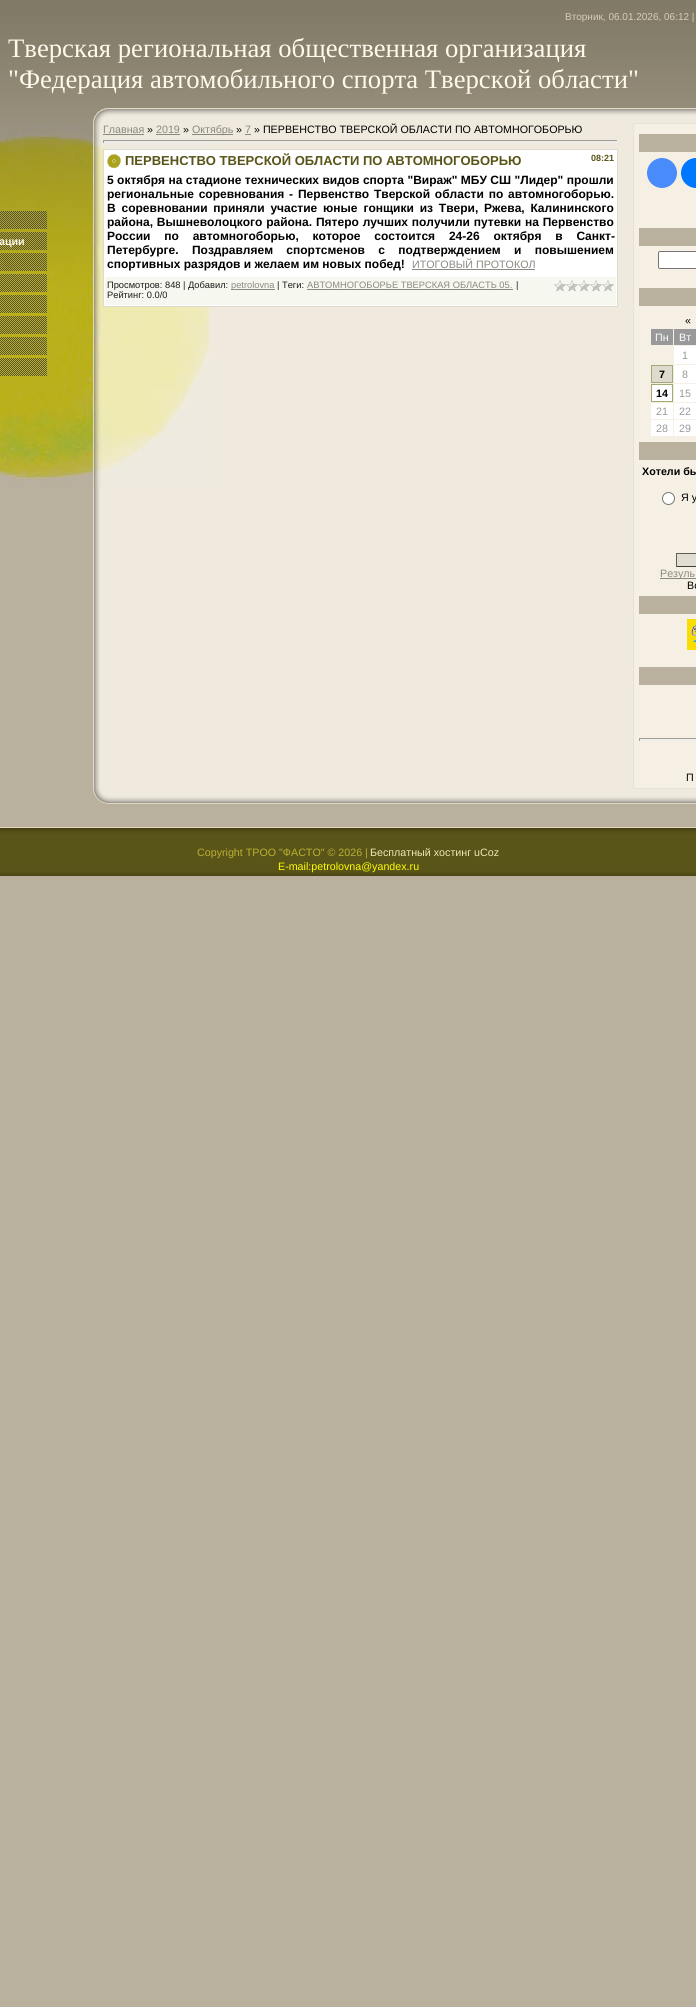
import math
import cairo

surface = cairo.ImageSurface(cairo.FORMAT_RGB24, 696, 2007)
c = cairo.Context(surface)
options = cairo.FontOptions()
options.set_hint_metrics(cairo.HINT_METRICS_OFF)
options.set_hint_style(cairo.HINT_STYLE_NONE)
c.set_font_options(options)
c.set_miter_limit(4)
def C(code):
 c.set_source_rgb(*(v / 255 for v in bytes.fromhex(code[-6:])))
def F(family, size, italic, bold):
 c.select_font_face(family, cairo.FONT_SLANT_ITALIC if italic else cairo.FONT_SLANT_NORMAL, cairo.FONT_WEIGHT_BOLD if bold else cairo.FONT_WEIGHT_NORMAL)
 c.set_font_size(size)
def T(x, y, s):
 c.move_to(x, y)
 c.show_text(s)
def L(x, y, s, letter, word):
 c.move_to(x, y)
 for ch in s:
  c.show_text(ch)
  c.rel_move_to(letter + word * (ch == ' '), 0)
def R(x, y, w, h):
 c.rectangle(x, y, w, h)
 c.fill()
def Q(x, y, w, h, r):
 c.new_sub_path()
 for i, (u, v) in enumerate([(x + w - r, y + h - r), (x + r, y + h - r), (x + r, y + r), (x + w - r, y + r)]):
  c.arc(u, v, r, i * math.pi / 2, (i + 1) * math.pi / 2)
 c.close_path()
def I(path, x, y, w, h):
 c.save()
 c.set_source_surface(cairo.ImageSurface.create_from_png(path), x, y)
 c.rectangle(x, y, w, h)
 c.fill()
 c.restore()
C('b9b09d')
c.paint()
I('1.png',0,0,696,124)
F('Liberation Sans',10,0,0)
C('d7cdb6')
T(565,20,'Вторник, 06.01.2026, 06:12 |')
F('Liberation Serif',26.7,0,0)
C('fef9eb')
T(8,57,'Тверская региональная общественная организация')
T(8,88,'"Федерация автомобильного спорта Тверской области"')
I('2.png',0,124,93,363)
I('3.png',0,211,47,18)
I('4.png',0,232,47,18)
F('Liberation Sans',10.7,0,1)
T(-1,245,'ации')
I('5.png',0,253,47,18)
I('6.png',0,274,47,18)
I('7.png',0,295,47,18)
I('8.png',0,316,47,18)
I('9.png',0,337,47,18)
I('10.png',0,358,47,18)
I('11.png',93,108,603,15)
C('efeadd')
R(100,123,533,666)
I('12.png',93,487,7,302)
I('13.png',93,123,120,364)
F('Liberation Sans',10.7,0,0)
C('8b8881')
T(103,133,'Главная')
R(103,134,41,1)
C('000000')
T(147,133,'»')
C('8b8881')
T(156,133,'2019')
R(156,134,24,1)
C('000000')
T(183,133,'»')
C('8b8881')
R(192,134,41,1)
T(192,133,'Октябрь')
C('000000')
T(236,133,'»')
C('8b8881')
T(245,133,'7')
R(245,134,6,1)
C('000000')
T(254,133,'» ПЕРВЕНСТВО ТВЕРСКОЙ ОБЛАСТИ ПО АВТОМНОГОБОРЬЮ')
C('9f9f9f')
R(103,140,515,1)
C('eeeeee')
R(617,140,1,3)
R(103,142,515,1)
C('9f9f9f')
R(103,140,1,3)
C('ffffff')
c.rectangle(103.5,149.5,514,157)
c.fill_preserve()
C('dfdace')
c.set_line_width(1)
c.stroke()
I('14.png',107,154,14,14)
F('Liberation Sans',13,0,1)
C('595418')
T(125,165,'ПЕРВЕНСТВО ТВЕРСКОЙ ОБЛАСТИ ПО АВТОМНОГОБОРЬЮ')
F('Liberation Sans',9,0,1)
T(591,161,'08:21')
F('Liberation Sans',12,0,1)
C('000000')
L(107,184,'5 октября на стадионе технических видов спорта "Вираж" МБУ СШ "Лидер" прошли',0,.1)
L(107,198,'региональные соревнования - Первенство Тверской области по автомногоборью.',0,1.5)
L(107,212,'В соревновании приняли участие юные гонщики из Твери, Ржева, Калининского',0,2.5)
L(107,226,'района, Вышневолоцкого района. Пятеро лучших получили путевки на Первенство',0,.5)
L(107,240,'России по автомногоборью, которое состоится 24-26 октября в Санкт-',0,10.5)
L(107,254,'Петербурге. Поздравляем спортсменов с подтверждением и повышением',0,10)
T(107,268,'спортивных разрядов и желаем им новых побед!')
F('Liberation Sans',10.7,0,0)
C('8b8881')
T(412,268,'ИТОГОВЫЙ ПРОТОКОЛ')
R(412,269,123,1)
C('f6f7ef')
R(105,277,511,28)
F('Liberation Sans',9.3,0,0)
C('1a1a1a')
T(107,288,'Просмотров: 848 | Добавил:')
C('8b8881')
R(231,289,44,1)
T(231,288,'petrolovna')
C('1a1a1a')
T(277,288,'| Теги:')
C('8b8881')
T(307,288,'АВТОМНОГОБОРЬЕ ТВЕРСКАЯ ОБЛАСТЬ 05.')
R(307,289,206,1)
C('1a1a1a')
T(516,288,'|')
I('15.png',554,280,60,12)
T(107,298,'Рейтинг: 0.0/0')
C('f5f0e3')
c.rectangle(633.5,123.5,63,665)
c.fill_preserve()
C('e7e2d6')
c.stroke()
C('b9b09d')
R(639,134,57,18)
C('498bfa')
c.arc(662,173,15,0,2 * math.pi)
c.fill()
C('0077ff')
c.arc(696,173,15,0,2 * math.pi)
c.fill()
C('b9b09d')
R(639,228,57,18)
C('ffffff')
Q(658.5,251.5,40,17,1.5)
c.fill_preserve()
C('767676')
c.stroke()
C('b9b09d')
R(639,288,57,18)
F('Liberation Sans',10.7,0,0)
C('000000')
T(685,324,'«')
C('999999')
R(651,329,22,16)
C('ffffff')
T(655,341,'Пн')
C('999999')
R(674,329,22,16)
C('ffffff')
T(679,341,'Вт')
R(674,346,22,18)
C('999999')
T(682,359,'1')
C('dfdace')
c.rectangle(651.5,365.5,21,17)
c.fill_preserve()
C('a3a974')
c.stroke()
F('Liberation Sans',10.7,0,1)
C('000000')
T(659,378,'7')
C('ffffff')
R(674,365,22,18)
F('Liberation Sans',10.7,0,0)
C('999999')
T(682,378,'8')
C('ffffff')
c.rectangle(651.5,384.5,21,17)
c.fill_preserve()
C('a3a974')
c.stroke()
F('Liberation Sans',10.7,0,1)
C('000000')
T(656,397,'14')
C('ffffff')
R(674,384,22,18)
F('Liberation Sans',10.7,0,0)
C('999999')
T(679,397,'15')
C('ffffff')
R(651,403,22,16)
C('999999')
T(656,415,'21')
C('ffffff')
R(674,403,22,16)
C('999999')
T(679,415,'22')
C('ffffff')
R(651,420,22,16)
C('999999')
T(656,432,'28')
C('ffffff')
R(674,420,22,16)
C('999999')
T(679,432,'29')
C('b9b09d')
R(639,442,57,18)
F('Liberation Sans',10.7,0,1)
C('000000')
T(642,475,'Хотели бы')
C('ffffff')
c.new_path()
c.arc(668.5,498.5,6,0,2 * math.pi)
c.fill_preserve()
C('767676')
c.stroke()
F('Liberation Sans',10.7,0,0)
C('000000')
T(681,501,'Я у')
C('e2ddd1')
R(677,554,19,12)
C('615e58')
R(676,553,20,1)
C('413f3b')
R(676,566,20,1)
C('615e58')
R(676,553,1,14)
C('8b8881')
R(660,578,36,1)
T(660,577,'Резуль')
C('000000')
T(687,589,'Вс')
C('b9b09d')
R(639,596,57,18)
I('16.png',687,619,9,31)
R(639,667,57,18)
C('9f9f9f')
R(639,738,57,1)
C('eeeeee')
R(639,740,57,1)
C('9f9f9f')
R(639,738,1,3)
C('000000')
T(686,781,'П')
I('17.png',93,789,603,15)
I('18.png',0,826,696,50)
C('bbb032')
T(197,856,'Copyright ТРОО "ФАСТО" © 2026 |')
C('efeab0')
T(370,856,'Бесплатный хостинг uCoz')
C('ffff00')
T(278,870,'Е-mail:petrolovna@yandex.ru')
surface.write_to_png('o.png')
